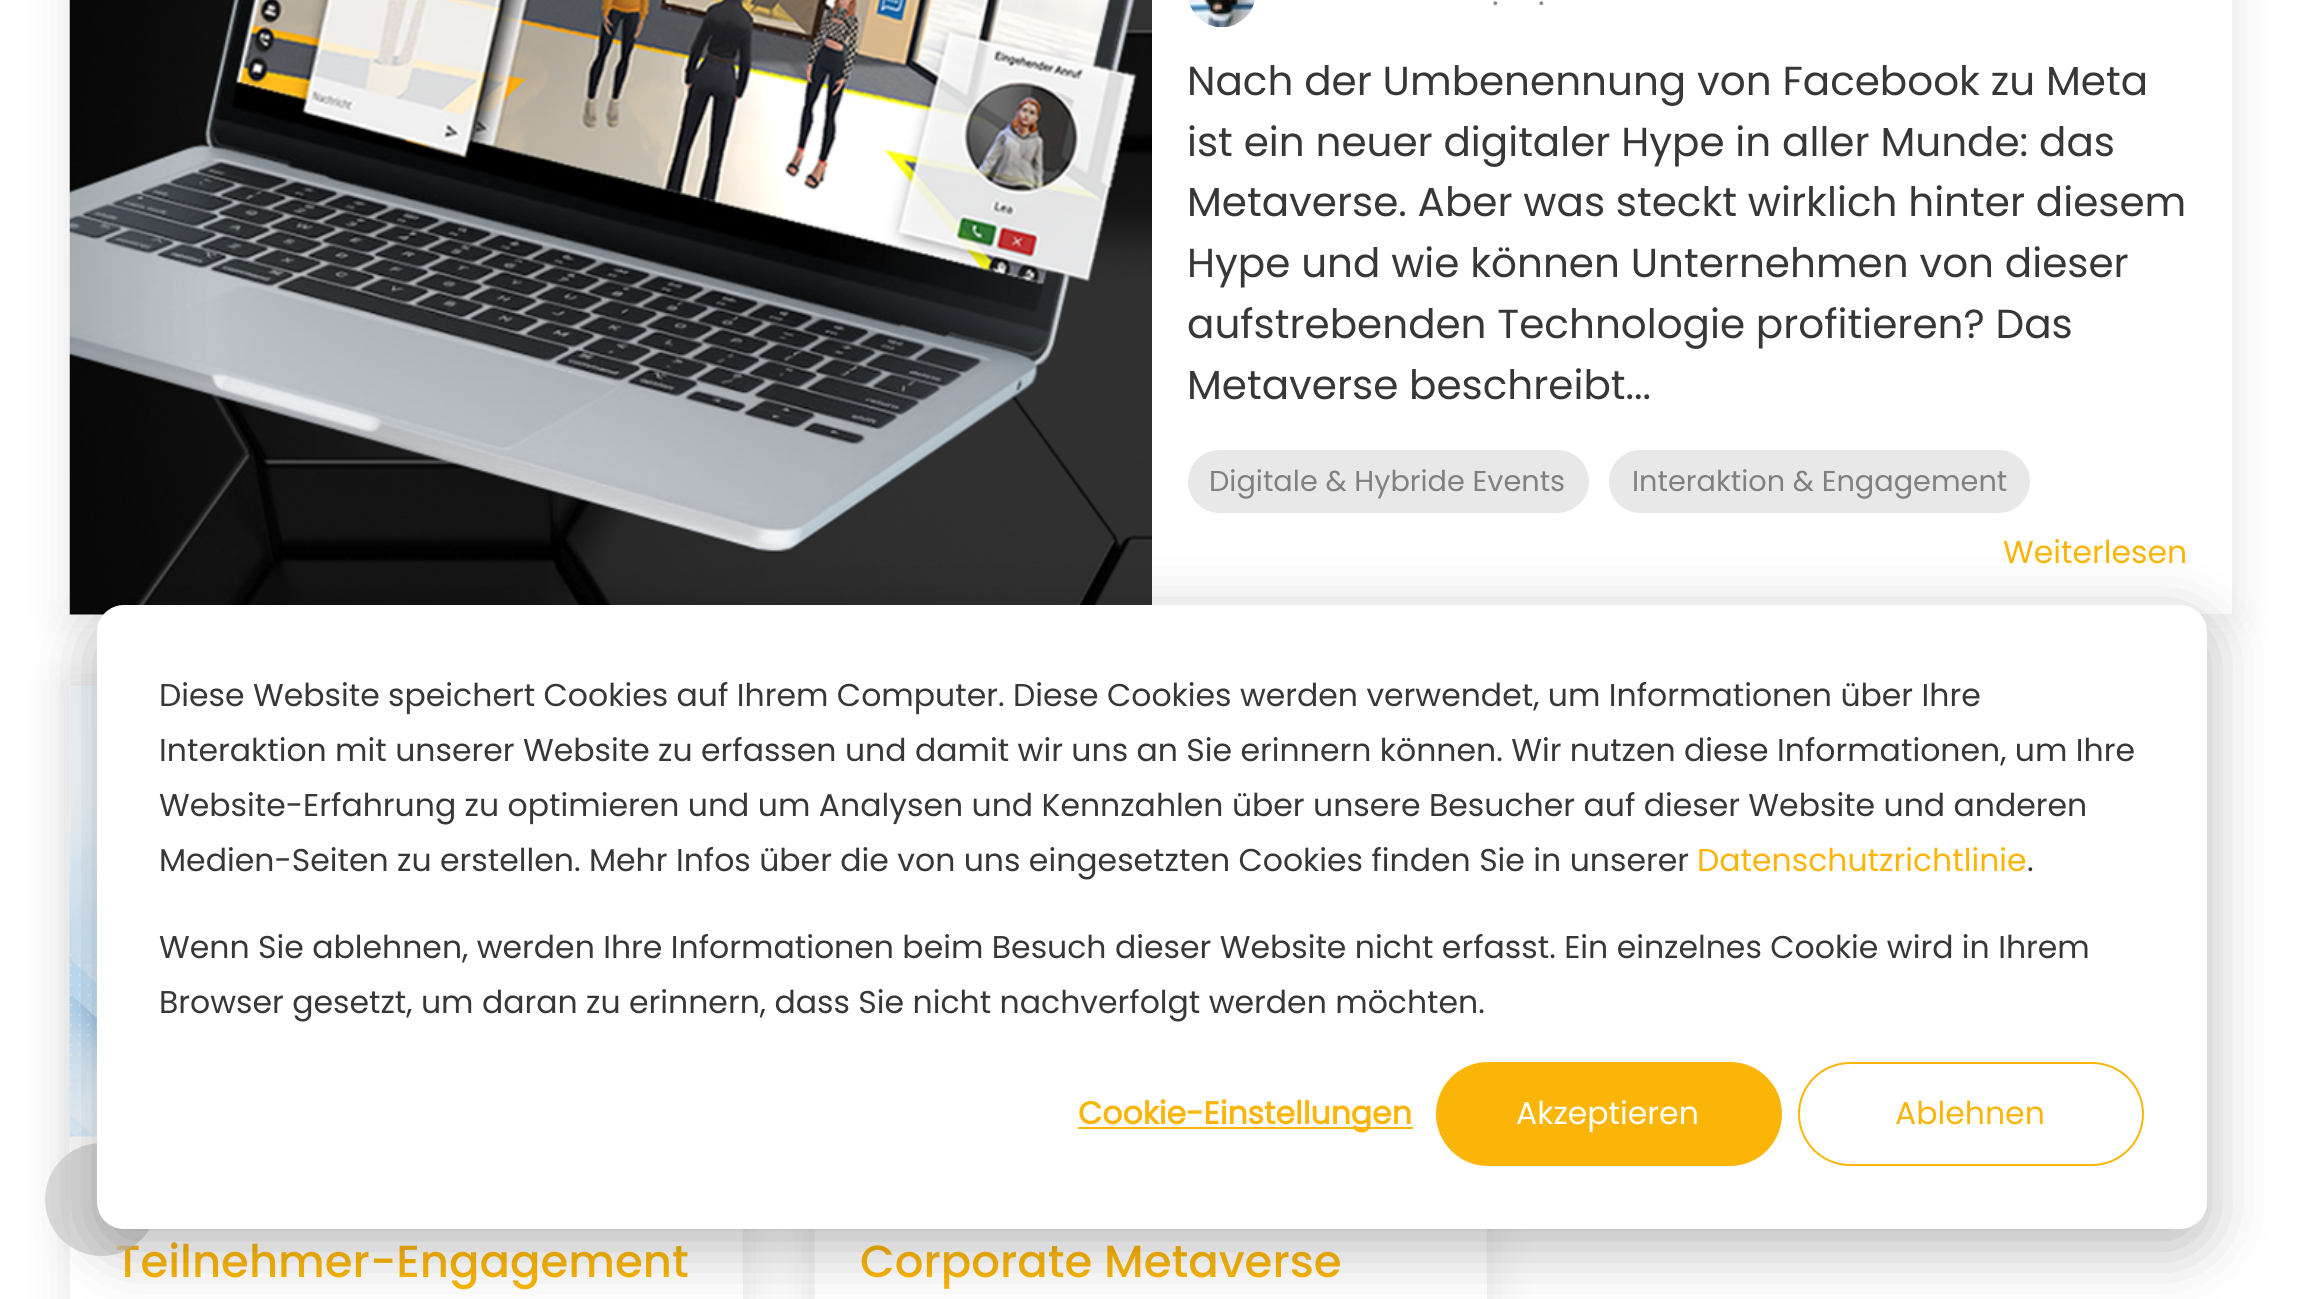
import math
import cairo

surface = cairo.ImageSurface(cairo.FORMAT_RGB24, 2300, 1299)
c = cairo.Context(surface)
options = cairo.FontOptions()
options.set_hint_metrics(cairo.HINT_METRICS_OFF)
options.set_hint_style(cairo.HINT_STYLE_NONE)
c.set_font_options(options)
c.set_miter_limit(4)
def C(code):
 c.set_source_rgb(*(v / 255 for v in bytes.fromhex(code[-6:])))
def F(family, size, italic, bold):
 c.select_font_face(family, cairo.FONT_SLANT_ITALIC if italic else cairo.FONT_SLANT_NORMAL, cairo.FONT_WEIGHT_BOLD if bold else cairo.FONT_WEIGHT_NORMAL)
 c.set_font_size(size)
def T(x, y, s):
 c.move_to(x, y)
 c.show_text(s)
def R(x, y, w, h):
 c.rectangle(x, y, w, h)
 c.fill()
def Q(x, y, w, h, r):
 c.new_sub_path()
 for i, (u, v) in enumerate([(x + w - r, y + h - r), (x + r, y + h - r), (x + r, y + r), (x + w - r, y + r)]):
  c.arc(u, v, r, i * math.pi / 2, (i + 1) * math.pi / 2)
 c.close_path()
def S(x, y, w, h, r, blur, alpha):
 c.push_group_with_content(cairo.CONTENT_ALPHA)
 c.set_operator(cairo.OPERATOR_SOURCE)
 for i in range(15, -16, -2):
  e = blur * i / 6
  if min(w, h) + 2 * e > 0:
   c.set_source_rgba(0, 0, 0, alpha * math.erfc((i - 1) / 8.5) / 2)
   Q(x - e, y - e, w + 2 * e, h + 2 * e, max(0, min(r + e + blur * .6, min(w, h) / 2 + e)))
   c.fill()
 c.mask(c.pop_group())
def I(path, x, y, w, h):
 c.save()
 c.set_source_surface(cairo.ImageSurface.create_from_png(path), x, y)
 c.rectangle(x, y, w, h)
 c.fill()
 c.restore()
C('ffffff')
c.paint()
C('000000')
S(68,684,677,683,0,22.5,.1)
C('ffffff')
R(70,686,673,613)
F('Poppins Medium',45,0,0)
C('fab508')
T(115,1277,'Teilnehmer-Engagement')
c.set_source_rgba(0.804,0.804,0.804,0.7)
c.new_path()
c.arc(101.5,1199.5,56.5,0,2 * math.pi)
c.fill()
c.save()
c.set_fill_rule(cairo.FILL_RULE_EVEN_ODD)
c.new_path()
c.move_to(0,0)
c.line_to(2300,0)
c.line_to(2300,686)
c.line_to(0,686)
c.close_path()
c.move_to(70,-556)
c.line_to(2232,-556)
c.line_to(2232,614)
c.line_to(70,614)
c.close_path()
c.clip()
C('000000')
S(68,-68,2166,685,0,22.5,.1)
c.restore()
I('1.png',69,0,1083,615)
I('2.png',1188,0,67,28)
F('Poppins',31.5,0,0)
C('8a8b8b')
T(1492,5,'.')
T(1538,5,'.')
F('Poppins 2',40.5,0,0)
C('373737')
T(1187,95,'Nach der Umbenennung von Facebook zu Meta')
T(1187,156,'ist ein neuer digitaler Hype in aller Munde: das')
T(1187,216,'Metaverse. Aber was steckt wirklich hinter diesem')
T(1187,277,'Hype und wie können Unternehmen von dieser')
T(1187,338,'aufstrebenden Technologie profitieren? Das')
T(1187,399,'Metaverse beschreibt...')
C('e8e8e8')
Q(1188,450,401,63,31.5)
c.fill()
F('Poppins',28.75,0,0)
C('808080')
T(1209,491,'Digitale & Hybride Events')
C('e8e8e8')
Q(1609,450,421,63,31.5)
c.fill()
C('808080')
T(1632,491,'Interaktion & Engagement')
F('Poppins',31.5,0,0)
C('fab508')
T(2003,563,'Weiterlesen')
I('3.png',69,686,28,451)
C('000000')
S(812,684,678,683,0,22.5,.1)
C('ffffff')
R(815,1229,672,70)
F('Poppins Medium',45,0,0)
C('fab508')
T(860,1277,'Corporate Metaverse')
C('000000')
S(97,623,2110,624,27,31.5,.28)
C('ffffff')
Q(97,605,2110,624,27)
c.fill()
F('Poppins 2',31.5,0,0)
C('373737')
T(159,706,'Diese Website speichert Cookies auf Ihrem Computer. Diese Cookies werden verwendet, um Informationen über Ihre')
T(159,761,'Interaktion mit unserer Website zu erfassen und damit wir uns an Sie erinnern können. Wir nutzen diese Informationen, um Ihre')
T(159,816,'Website-Erfahrung zu optimieren und um Analysen und Kennzahlen über unsere Besucher auf dieser Website und anderen')
T(159,871,'Medien-Seiten zu erstellen. Mehr Infos über die von uns eingesetzten Cookies finden Sie in unserer')
C('fab508')
T(1697,871,'Datenschutzrichtlinie')
C('373737')
T(2027,871,'.')
T(159,958,'Wenn Sie ablehnen, werden Ihre Informationen beim Besuch dieser Website nicht erfasst. Ein einzelnes Cookie wird in Ihrem')
T(159,1013,'Browser gesetzt, um daran zu erinnern, dass Sie nicht nachverfolgt werden möchten.')
C('fab508')
R(1078,1127,335,2)
F('Poppins',31.5,0,1)
T(1078,1124,'Cookie-Einstellungen')
Q(1437,1063,344,102,51)
c.fill_preserve()
c.stroke()
F('Poppins 2',31.5,0,0)
C('ffffff')
T(1516,1124,'Akzeptieren')
Q(1799,1063,344,102,51)
C('fab508')
c.stroke()
T(1895,1124,'Ablehnen')
surface.write_to_png('o.png')
